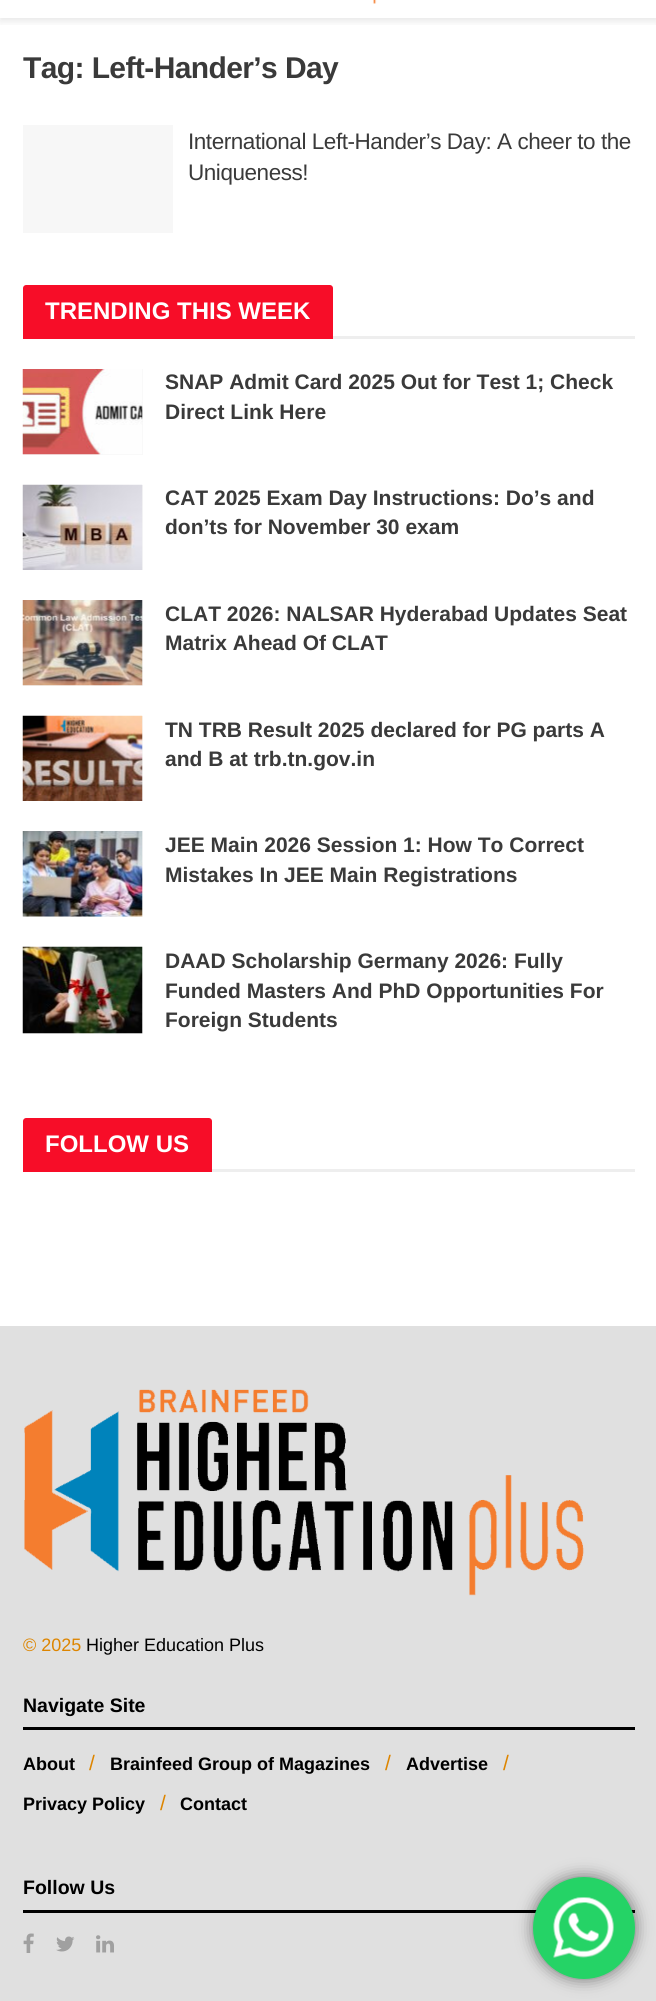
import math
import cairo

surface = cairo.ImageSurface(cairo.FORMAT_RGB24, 656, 2001)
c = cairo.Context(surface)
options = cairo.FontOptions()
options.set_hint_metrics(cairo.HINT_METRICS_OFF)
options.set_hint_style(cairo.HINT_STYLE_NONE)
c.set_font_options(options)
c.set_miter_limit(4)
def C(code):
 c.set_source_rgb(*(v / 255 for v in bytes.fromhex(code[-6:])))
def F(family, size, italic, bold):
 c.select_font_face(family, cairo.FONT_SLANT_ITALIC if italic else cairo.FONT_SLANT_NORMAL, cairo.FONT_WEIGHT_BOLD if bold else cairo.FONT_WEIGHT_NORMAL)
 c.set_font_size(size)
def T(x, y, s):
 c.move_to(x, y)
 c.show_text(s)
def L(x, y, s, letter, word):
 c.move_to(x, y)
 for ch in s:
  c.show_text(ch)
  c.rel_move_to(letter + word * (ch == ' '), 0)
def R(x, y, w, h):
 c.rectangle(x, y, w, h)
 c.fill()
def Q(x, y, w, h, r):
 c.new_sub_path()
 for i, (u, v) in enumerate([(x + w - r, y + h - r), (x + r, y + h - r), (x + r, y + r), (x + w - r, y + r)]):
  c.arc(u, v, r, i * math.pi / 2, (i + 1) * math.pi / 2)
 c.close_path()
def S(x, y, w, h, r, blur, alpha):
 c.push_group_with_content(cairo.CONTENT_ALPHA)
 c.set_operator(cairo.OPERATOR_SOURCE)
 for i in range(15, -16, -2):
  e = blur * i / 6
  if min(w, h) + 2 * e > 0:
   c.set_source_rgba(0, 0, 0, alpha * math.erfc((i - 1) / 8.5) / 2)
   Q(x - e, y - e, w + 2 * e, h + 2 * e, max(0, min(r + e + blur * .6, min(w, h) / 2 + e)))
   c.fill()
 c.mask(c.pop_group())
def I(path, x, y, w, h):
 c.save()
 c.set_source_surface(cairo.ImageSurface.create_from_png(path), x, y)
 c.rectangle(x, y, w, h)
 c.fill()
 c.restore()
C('ffffff')
c.paint()
c.save()
c.rectangle(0,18,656,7)
c.clip()
C('000000')
S(0,-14,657,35,0,4.5,.1)
c.restore()
I('1.png',373,0,4,4)
F('Liberation Sans',30,0,1)
C('3a3a3a')
L(23,78,'Tag: Left-Hander’s Day',-.6,0)
C('f7f7f7')
R(23,125,150,108)
F('Liberation Sans',22.5,0,0)
C('3a3a3a')
L(188,149,'International Left-Hander’s Day: A cheer to the',-.45,0)
L(188,180,'Uniqueness!',-.45,0)
C('eeeeee')
R(333,336,302,3)
C('f70d28')
c.new_path()
c.move_to(26,285)
c.line_to(330,285)
c.curve_to(331.5,285,333,286.5,333,288)
c.line_to(333,339)
c.line_to(23,339)
c.line_to(23,288)
c.curve_to(23,286.5,24.5,285,26,285)
c.close_path()
c.fill()
F('Liberation Sans',24,0,1)
C('ffffff')
T(45,319,'TRENDING THIS WEEK')
C('f7f7f7')
R(23,369,120,86)
I('2.png',22,369,121,86)
F('Liberation Sans',21,0,1)
C('3a3a3a')
T(165,389,'SNAP Admit Card 2025 Out for Test 1; Check')
T(165,419,'Direct Link Here')
C('f7f7f7')
R(142,485,1,85)
I('3.png',22,484,121,86)
C('3a3a3a')
T(165,505,'CAT 2025 Exam Day Instructions: Do’s and')
T(165,534,'don’ts for November 30 exam')
C('f7f7f7')
R(23,600,120,86)
I('4.png',22,600,121,86)
C('3a3a3a')
T(165,621,'CLAT 2026: NALSAR Hyderabad Updates Seat')
T(165,650,'Matrix Ahead Of CLAT')
C('f7f7f7')
R(142,716,1,85)
I('5.png',22,715,121,86)
C('3a3a3a')
T(165,737,'TN TRB Result 2025 declared for PG parts A')
T(165,766,'and B at trb.tn.gov.in')
C('f7f7f7')
R(23,831,120,86)
I('6.png',22,831,121,86)
C('3a3a3a')
T(165,852,'JEE Main 2026 Session 1: How To Correct')
T(165,882,'Mistakes In JEE Main Registrations')
C('f7f7f7')
R(23,947,120,87)
I('7.png',22,946,121,88)
C('3a3a3a')
T(165,968,'DAAD Scholarship Germany 2026: Fully')
T(165,998,'Funded Masters And PhD Opportunities For')
T(165,1027,'Foreign Students')
C('eeeeee')
R(212,1169,423,3)
C('f70d28')
c.new_path()
c.move_to(26,1118)
c.line_to(209,1118)
c.curve_to(210.5,1118,212,1119.5,212,1121)
c.line_to(212,1172)
c.line_to(23,1172)
c.line_to(23,1121)
c.curve_to(23,1119.5,24.5,1118,26,1118)
c.close_path()
c.fill()
F('Liberation Sans',24,0,1)
C('ffffff')
T(45,1152,'FOLLOW US')
C('e0e0e0')
R(0,1326,656,675)
I('8.png',24,1389,560,207)
F('Liberation Sans',18,0,0)
C('dd8500')
T(23,1651,'© 2025')
C('000000')
T(86,1651,'Higher Education Plus')
R(23,1727,612,3)
F('Liberation Sans',19.5,0,1)
T(23,1712,'Navigate Site')
F('Liberation Sans',18,0,1)
T(23,1770,'About')
F('Liberation Sans',21,0,0)
C('dd8500')
T(89,1770,'/')
F('Liberation Sans',18,0,1)
C('000000')
T(110,1770,'Brainfeed Group of Magazines')
F('Liberation Sans',21,0,0)
C('dd8500')
T(385,1770,'/')
F('Liberation Sans',18,0,1)
C('000000')
T(406,1770,'Advertise')
F('Liberation Sans',21,0,0)
C('dd8500')
T(503,1770,'/')
F('Liberation Sans',18,0,1)
C('000000')
T(23,1810,'Privacy Policy')
F('Liberation Sans',21,0,0)
C('dd8500')
T(160,1810,'/')
F('Liberation Sans',18,0,1)
C('000000')
T(180,1810,'Contact')
R(23,1910,612,3)
F('Liberation Sans',19.5,0,1)
T(23,1894,'Follow Us')
I('9.png',23,1933,11,20)
I('10.png',56,1936,19,16)
I('11.png',96,1935,18,18)
C('000000')
S(533,1877,102,102,51,8,.5)
C('25d366')
c.arc(584,1928,51,0,2 * math.pi)
c.fill()
I('12.png',553,1897,61,61)
surface.write_to_png('o.png')
